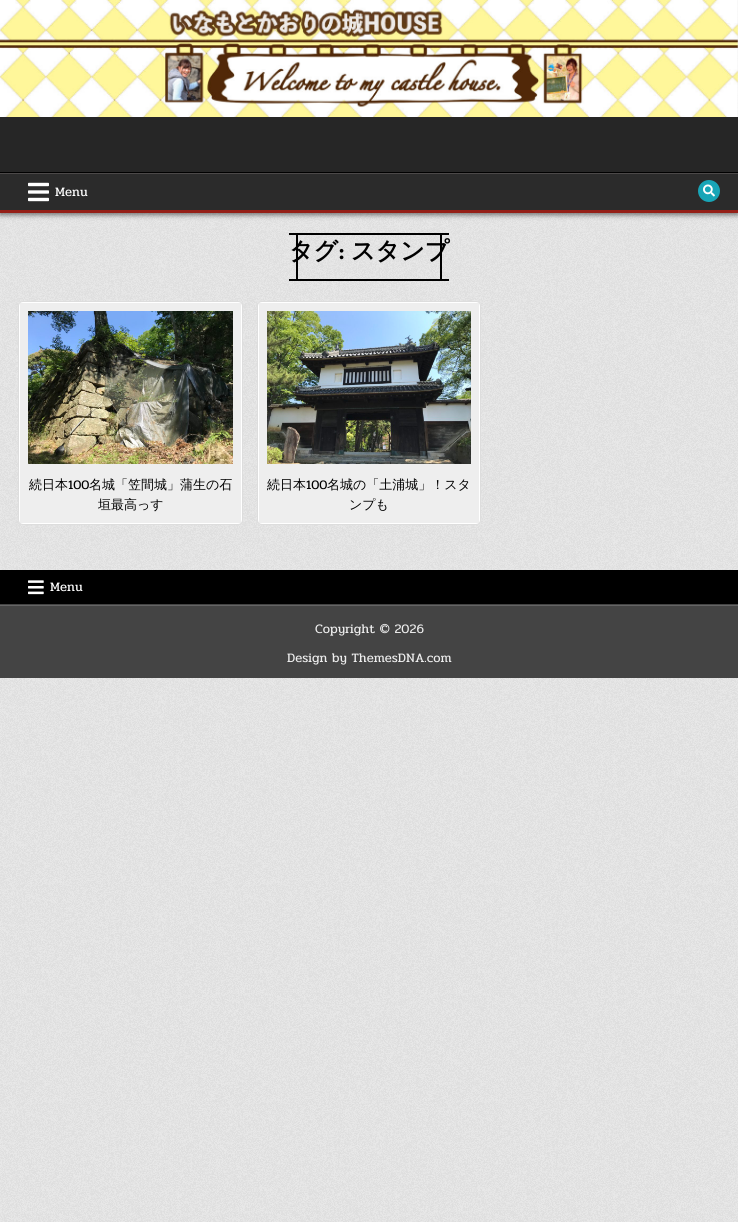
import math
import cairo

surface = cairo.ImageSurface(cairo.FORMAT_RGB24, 738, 1222)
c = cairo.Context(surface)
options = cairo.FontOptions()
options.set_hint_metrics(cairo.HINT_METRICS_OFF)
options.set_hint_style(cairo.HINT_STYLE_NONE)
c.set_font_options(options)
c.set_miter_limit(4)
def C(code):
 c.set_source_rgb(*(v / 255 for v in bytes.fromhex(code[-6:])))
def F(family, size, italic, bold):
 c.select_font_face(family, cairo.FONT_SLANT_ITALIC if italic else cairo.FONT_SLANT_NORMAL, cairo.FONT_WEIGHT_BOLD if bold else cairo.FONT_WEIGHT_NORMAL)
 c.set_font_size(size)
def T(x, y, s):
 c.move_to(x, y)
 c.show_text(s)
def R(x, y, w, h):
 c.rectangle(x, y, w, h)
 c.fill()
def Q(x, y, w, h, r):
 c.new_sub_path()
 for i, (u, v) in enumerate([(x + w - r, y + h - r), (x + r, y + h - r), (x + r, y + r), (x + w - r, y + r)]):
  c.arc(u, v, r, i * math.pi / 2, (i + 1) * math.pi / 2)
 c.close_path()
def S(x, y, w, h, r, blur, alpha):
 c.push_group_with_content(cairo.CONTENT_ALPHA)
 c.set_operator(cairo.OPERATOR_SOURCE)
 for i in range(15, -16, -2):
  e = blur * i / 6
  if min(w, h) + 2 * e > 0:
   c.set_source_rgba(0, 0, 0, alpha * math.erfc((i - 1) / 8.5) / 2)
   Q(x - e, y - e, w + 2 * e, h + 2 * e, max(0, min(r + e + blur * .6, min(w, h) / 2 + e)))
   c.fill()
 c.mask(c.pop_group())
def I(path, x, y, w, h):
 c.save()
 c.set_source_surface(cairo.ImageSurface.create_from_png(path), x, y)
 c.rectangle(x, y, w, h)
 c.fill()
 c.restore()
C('ffffff')
c.paint()
I('1.png',0,0,738,1222)
I('2.png',0,0,738,117)
C('000000')
S(0,175,738,40,0,2.5,.5)
C('262626')
R(0,117,738,55)
C('000000')
R(0,172,738,1)
C('2b2b2b')
R(0,174,738,36)
C('4c4949')
R(0,173,738,1)
C('951f17')
R(0,210,738,3)
I('3.png',28,182,21,20)
F('Pridi',13,0,0)
C('ffffff')
T(55,196,'Menu')
C('18a5b7')
c.new_path()
c.arc(709,191,11,0,2 * math.pi)
c.fill()
I('4.png',703,184,12,13)
C('000000')
R(289,233,160,2)
R(289,279,160,2)
R(296,233,2,48)
R(440,233,2,48)
F('WenQuanYi Zen Hei',24,0,1)
T(289,259,'タグ')
F('Frank Ruhl Libre',24,0,1)
T(338,259,':')
F('WenQuanYi Zen Hei',24,0,1)
T(351,259,'スタンプ')
C('eeeeee')
Q(18.5,301.5,224,223,4.5)
c.fill_preserve()
C('dddddd')
c.set_line_width(1)
c.stroke()
C('ffffff')
c.set_fill_rule(cairo.FILL_RULE_EVEN_ODD)
c.new_path()
c.move_to(19,306)
c.line_to(19,520)
c.line_to(20,523)
c.line_to(20,303)
c.close_path()
c.move_to(23,302)
c.line_to(20,303)
c.line_to(241,303)
c.line_to(238,302)
c.close_path()
c.move_to(242,306)
c.line_to(241,303)
c.line_to(241,523)
c.line_to(242,520)
c.close_path()
c.move_to(238,524)
c.line_to(241,523)
c.line_to(20,523)
c.line_to(23,524)
c.close_path()
c.fill()
I('5.png',28,311,205,153)
F('WenQuanYi Zen Hei Medium',13,0,0)
C('000000')
T(29,489,'続日本')
F('Pridi',13,0,0)
T(68,489,'100')
F('WenQuanYi Zen Hei Medium',13,0,0)
T(89,489,'名城「笠間城」蒲生の石')
T(98,509,'垣最高っす')
C('eeeeee')
Q(257.5,301.5,223,223,4.5)
c.fill_preserve()
C('dddddd')
c.stroke()
C('ffffff')
c.new_path()
c.move_to(258,306)
c.line_to(258,520)
c.line_to(259,523)
c.line_to(259,303)
c.close_path()
c.move_to(262,302)
c.line_to(259,303)
c.line_to(479,303)
c.line_to(476,302)
c.close_path()
c.move_to(480,306)
c.line_to(479,303)
c.line_to(479,523)
c.line_to(480,520)
c.close_path()
c.move_to(476,524)
c.line_to(479,523)
c.line_to(259,523)
c.line_to(262,524)
c.close_path()
c.fill()
I('6.png',267,311,204,153)
C('000000')
T(267,489,'続日本')
F('Pridi',13,0,0)
T(306,489,'100')
F('WenQuanYi Zen Hei Medium',13,0,0)
T(327,489,'名城の「土浦城」！スタ')
T(349,509,'ンプも')
R(0,570,738,34)
C('444444')
R(0,604,738,1)
I('7.png',28,580,16,15)
F('Pridi',13,0,0)
C('ffffff')
T(50,591,'Menu')
C('444444')
R(0,606,738,72)
C('656565')
R(0,605,738,1)
C('eeeeee')
T(315,633,'Copyright © 2026')
T(287,662,'Design by ThemesDNA.com')
surface.write_to_png('o.png')
